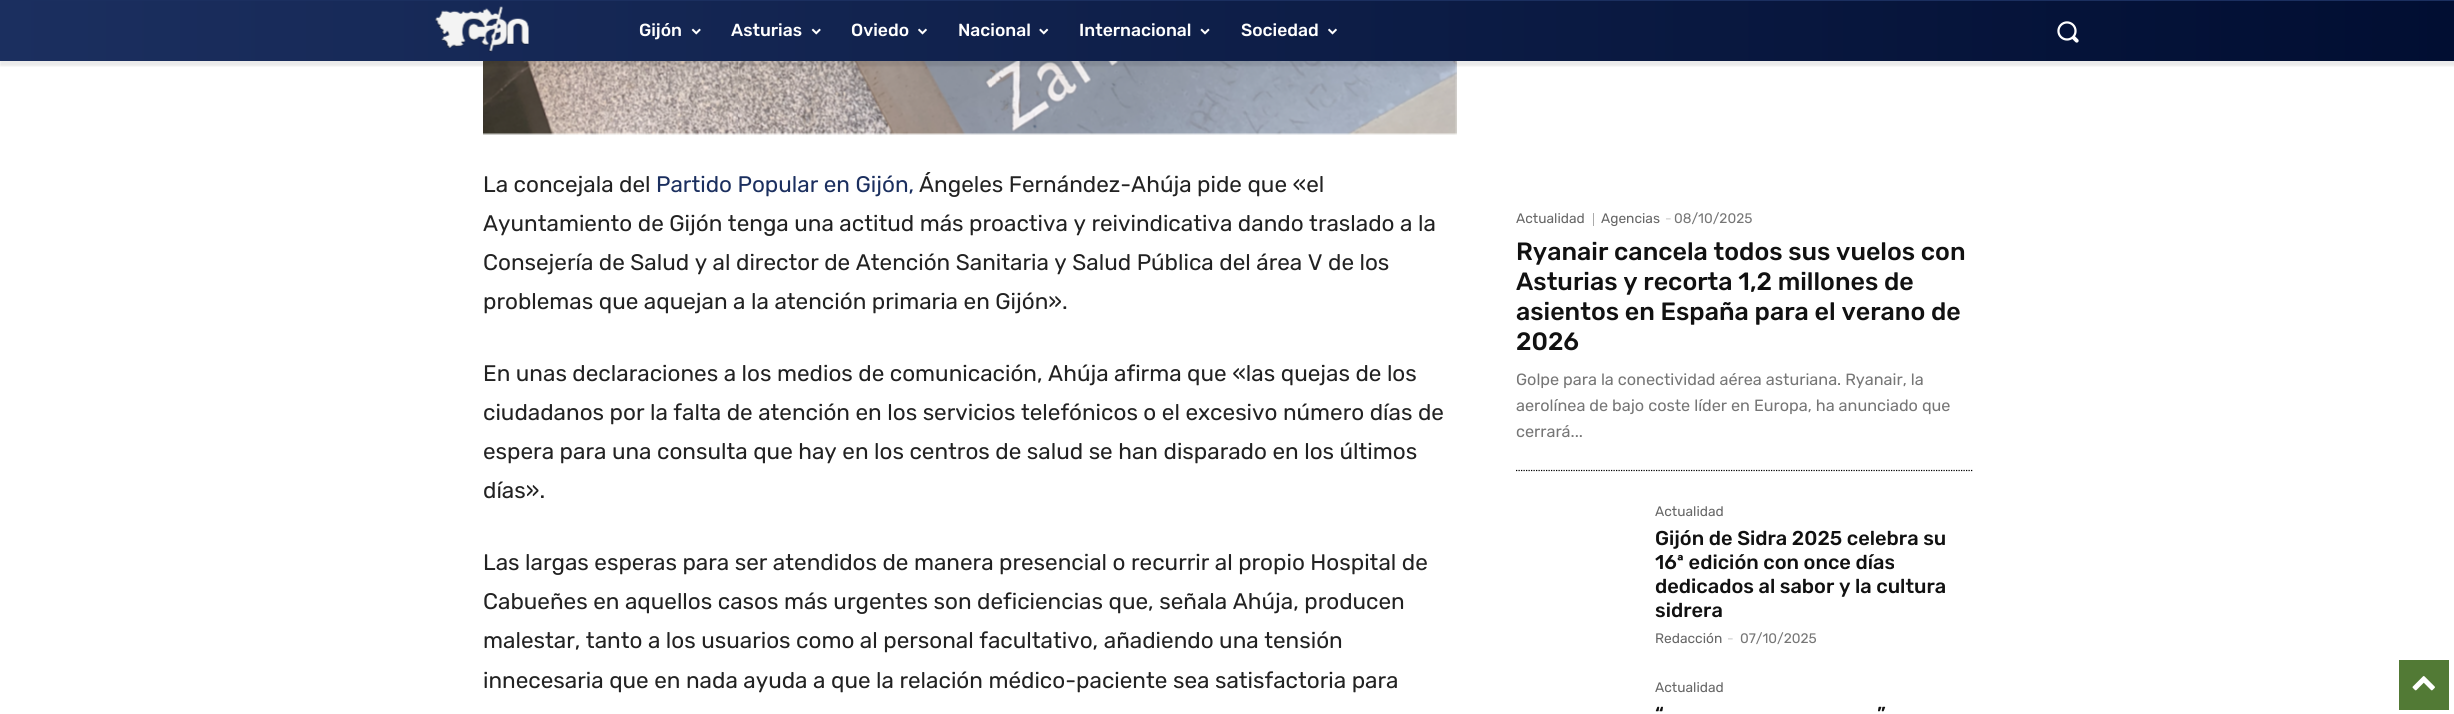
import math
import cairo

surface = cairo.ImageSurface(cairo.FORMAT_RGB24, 2454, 714)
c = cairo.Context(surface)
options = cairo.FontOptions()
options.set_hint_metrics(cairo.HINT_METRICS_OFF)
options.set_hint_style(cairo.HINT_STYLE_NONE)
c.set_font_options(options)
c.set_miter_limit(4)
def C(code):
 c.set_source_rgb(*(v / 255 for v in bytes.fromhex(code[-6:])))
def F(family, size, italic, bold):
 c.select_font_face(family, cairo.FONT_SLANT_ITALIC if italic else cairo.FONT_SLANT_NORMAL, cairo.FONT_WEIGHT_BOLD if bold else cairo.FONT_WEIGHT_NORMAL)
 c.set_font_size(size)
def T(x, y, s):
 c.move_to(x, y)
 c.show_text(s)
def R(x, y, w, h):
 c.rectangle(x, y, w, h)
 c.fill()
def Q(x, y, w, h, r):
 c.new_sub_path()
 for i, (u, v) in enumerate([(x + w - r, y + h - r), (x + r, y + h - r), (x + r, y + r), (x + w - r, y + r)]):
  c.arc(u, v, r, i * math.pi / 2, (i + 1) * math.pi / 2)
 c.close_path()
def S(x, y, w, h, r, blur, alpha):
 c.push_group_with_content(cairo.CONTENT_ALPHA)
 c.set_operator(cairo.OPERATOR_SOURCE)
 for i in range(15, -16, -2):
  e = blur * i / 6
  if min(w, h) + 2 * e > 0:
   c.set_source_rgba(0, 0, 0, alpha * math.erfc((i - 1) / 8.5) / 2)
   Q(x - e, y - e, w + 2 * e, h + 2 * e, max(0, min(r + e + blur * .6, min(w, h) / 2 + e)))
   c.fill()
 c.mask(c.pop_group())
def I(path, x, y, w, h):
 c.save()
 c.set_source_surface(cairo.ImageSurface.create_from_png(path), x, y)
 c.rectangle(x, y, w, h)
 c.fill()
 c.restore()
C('ffffff')
c.paint()
C('1b2f5f')
R(0,0,2454,1)
gradient = cairo.LinearGradient(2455,31,0,31)
gradient.add_color_stop_rgba(0,0.004,0.055,0.196,1)
gradient.add_color_stop_rgba(1,0.106,0.184,0.373,1)
c.set_source(gradient)
R(0,1,2454,60)
I('1.png',435,6,94,46)
I('9.png',483,61,974,74)
c.save()
c.rectangle(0,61,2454,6)
c.clip()
C('000000')
S(0,5,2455,61,0,1,.08)
c.restore()
F('Rubik Medium',17.5,0,0)
C('ffffff')
T(639,36,'Gijón')
I('2.png',691,28,10,7)
T(731,36,'Asturias')
I('3.png',811,28,10,7)
T(851,36,'Oviedo')
I('4.png',918,28,9,7)
T(958,36,'Nacional')
I('5.png',1039,28,10,7)
T(1079,36,'Internacional')
I('6.png',1200,28,10,7)
T(1241,36,'Sociedad')
I('7.png',1328,28,9,7)
I('8.png',2057,21,22,22)
F('Rubik',22.5,0,0)
C('222222')
T(483,192,'La concejala del')
C('1b2f5f')
T(656,192,'Partido Popular en Gijón,')
C('222222')
T(919,192,'Ángeles Fernández-Ahúja pide que «el')
T(483,231,'Ayuntamiento de Gijón tenga una actitud más proactiva y reivindicativa dando traslado a la')
T(483,270,'Consejería de Salud y al director de Atención Sanitaria y Salud Pública del área V de los')
T(483,309,'problemas que aquejan a la atención primaria en Gijón».')
T(483,381,'En unas declaraciones a los medios de comunicación, Ahúja afirma que «las quejas de los')
T(483,420,'ciudadanos por la falta de atención en los servicios telefónicos o el excesivo número días de')
T(483,459,'espera para una consulta que hay en los centros de salud se han disparado en los últimos')
T(483,498,'días».')
T(483,570,'Las largas esperas para ser atendidos de manera presencial o recurrir al propio Hospital de')
T(483,609,'Cabueñes en aquellos casos más urgentes son deficiencias que, señala Ahúja, producen')
T(483,648,'malestar, tanto a los usuarios como al personal facultativo, añadiendo una tensión')
T(483,688,'innecesaria que en nada ayuda a que la relación médico-paciente sea satisfactoria para')
c.new_path()
c.move_to(1516,470.5)
c.line_to(1972.5,470.5)
C('000000')
c.set_line_width(1.2)
c.set_dash([1.25,1.25])
c.stroke()
C('aaaaaa')
R(1593,213,1,13)
F('Rubik',13.75,0,0)
C('666666')
T(1516,223,'Actualidad')
T(1601,223,'Agencias')
C('cccccc')
T(1665,223,'-')
C('767676')
T(1674,223,'08/10/2025')
F('Rubik Medium',25,0,0)
C('111111')
T(1516,260,'Ryanair cancela todos sus vuelos con')
T(1516,290,'Asturias y recorta 1,2 millones de')
T(1516,320,'asientos en España para el verano de')
T(1516,350,'2026')
F('Rubik',16.25,0,0)
C('767676')
T(1516,385,'Golpe para la conectividad aérea asturiana. Ryanair, la')
T(1516,411,'aerolínea de bajo coste líder en Europa, ha anunciado que')
T(1516,437,'cerrará...')
F('Rubik',13.75,0,0)
C('666666')
T(1655,516,'Actualidad')
F('Rubik Medium',20,0,0)
C('111111')
T(1655,545,'Gijón de Sidra 2025 celebra su')
T(1655,569,'16ª edición con once días')
T(1655,593,'dedicados al sabor y la cultura')
T(1655,617,'sidrera')
F('Rubik',13.75,0,0)
C('666666')
T(1655,643,'Redacción')
C('cccccc')
T(1727,643,'-')
C('767676')
T(1740,643,'07/10/2025')
C('666666')
T(1655,692,'Actualidad')
F('Rubik Medium',20,0,0)
C('111111')
T(1655,721,'“')
T(1877,721,'”')
C('527a35')
R(2399,660,50,50)
I('10.png',2412,676,23,15)
surface.write_to_png('o.png')
